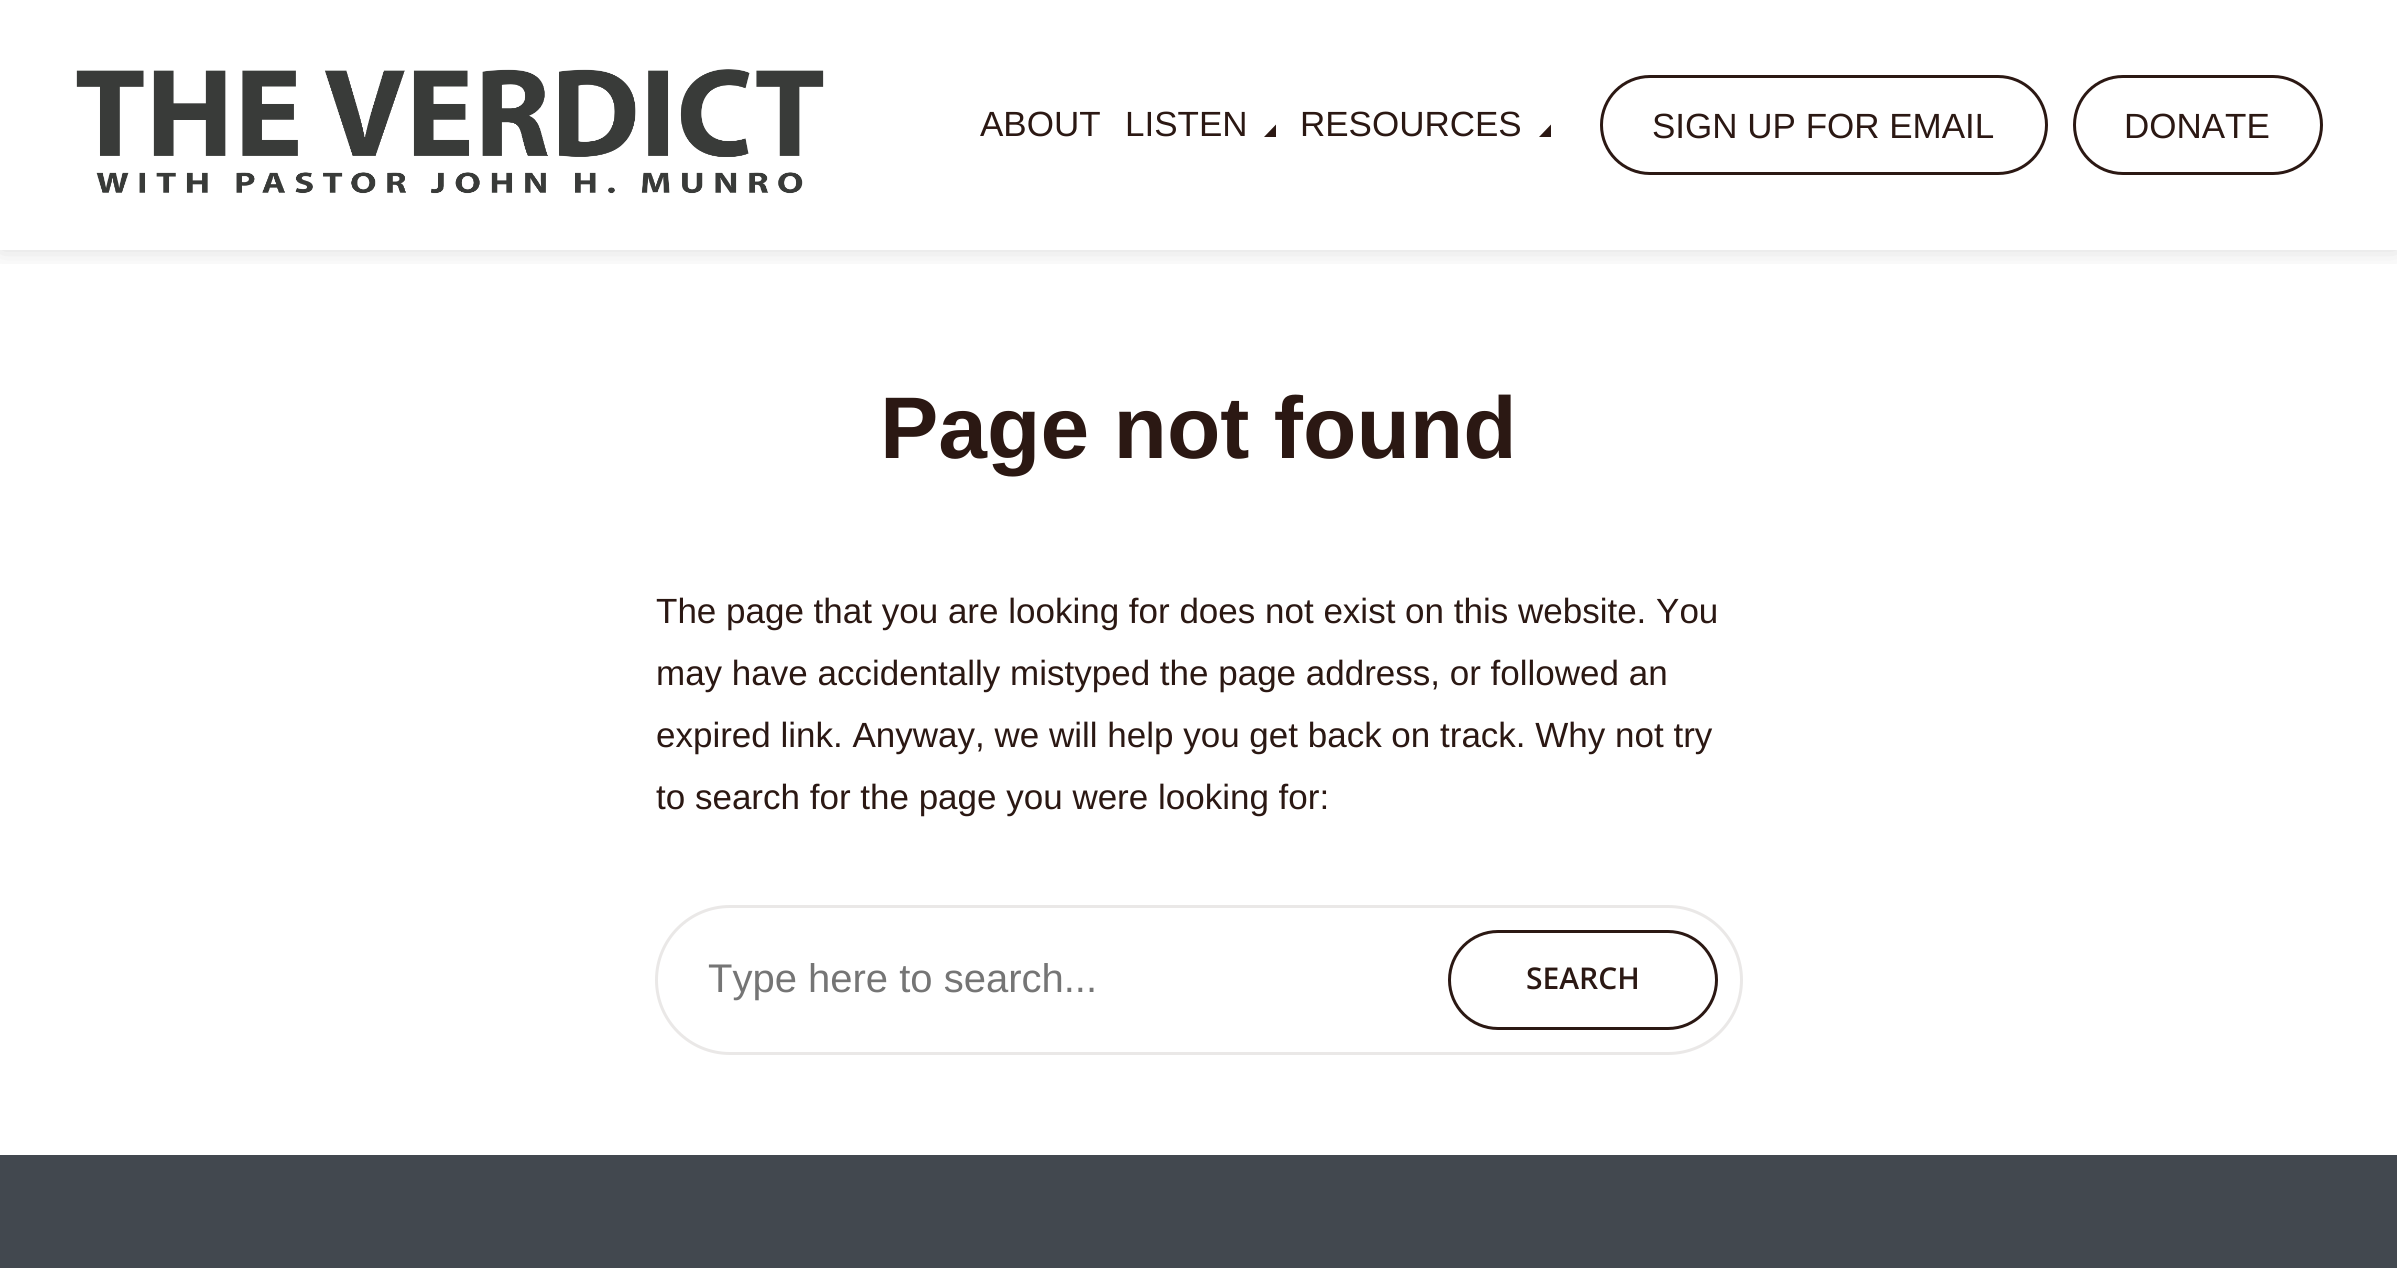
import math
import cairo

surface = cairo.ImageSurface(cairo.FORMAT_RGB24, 2397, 1268)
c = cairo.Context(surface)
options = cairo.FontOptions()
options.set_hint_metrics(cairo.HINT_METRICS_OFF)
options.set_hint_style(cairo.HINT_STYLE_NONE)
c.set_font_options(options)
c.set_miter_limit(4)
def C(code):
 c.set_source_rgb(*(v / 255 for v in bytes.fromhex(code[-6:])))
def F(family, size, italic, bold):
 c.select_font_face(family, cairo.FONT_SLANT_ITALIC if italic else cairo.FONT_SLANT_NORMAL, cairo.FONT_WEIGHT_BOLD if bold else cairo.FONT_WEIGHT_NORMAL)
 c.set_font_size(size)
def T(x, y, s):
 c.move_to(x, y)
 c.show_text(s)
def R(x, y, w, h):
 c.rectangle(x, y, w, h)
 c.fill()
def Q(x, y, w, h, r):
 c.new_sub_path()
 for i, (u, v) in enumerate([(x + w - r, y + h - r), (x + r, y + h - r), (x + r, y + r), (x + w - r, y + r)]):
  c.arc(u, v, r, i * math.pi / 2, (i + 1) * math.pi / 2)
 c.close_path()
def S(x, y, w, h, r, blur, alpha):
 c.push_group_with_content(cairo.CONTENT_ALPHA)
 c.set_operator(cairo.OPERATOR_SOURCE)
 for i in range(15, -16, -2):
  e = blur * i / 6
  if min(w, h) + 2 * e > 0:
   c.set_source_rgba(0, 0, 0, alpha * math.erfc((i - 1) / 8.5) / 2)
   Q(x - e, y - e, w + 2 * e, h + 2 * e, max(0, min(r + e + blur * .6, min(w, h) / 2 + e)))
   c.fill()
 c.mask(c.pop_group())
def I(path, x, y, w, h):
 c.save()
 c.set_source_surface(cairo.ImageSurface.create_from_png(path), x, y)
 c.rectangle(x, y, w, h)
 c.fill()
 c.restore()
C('ffffff')
c.paint()
c.save()
c.rectangle(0,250,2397,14)
c.clip()
C('000000')
S(0,0,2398,250,0,12.5,.15)
c.restore()
I('1.png',76,69,748,125)
F('Liberation Sans',35,0,0)
C('2b1813')
T(980,136,'ABOUT')
T(1125,136,'LISTEN')
c.new_path()
c.move_to(1276,124.5)
c.line_to(1276,137)
c.line_to(1264,137)
c.close_path()
c.fill()
T(1300,136,'RESOURCES')
c.new_path()
c.move_to(1551,124.5)
c.line_to(1551,137)
c.line_to(1539,137)
c.close_path()
c.fill()
Q(1601.5,76.5,445,97,48.5)
c.set_line_width(3)
c.stroke()
T(1652,138,'SIGN UP FOR EMAIL')
Q(2074.5,76.5,247,97,48.5)
c.stroke()
T(2124,138,'DONATE')
F('Liberation Sans',87.5,0,1)
T(880,458,'Page not found')
F('Liberation Sans',35,0,0)
T(656,623,'The page that you are looking for does not exist on this website. You')
T(656,685,'may have accidentally mistyped the page address, or followed an')
T(656,747,'expired link. Anyway, we will help you get back on track. Why not try')
T(656,809,'to search for the page you were looking for:')
Q(656.5,906.5,1085,147,73.5)
C('eae8e7')
c.stroke()
F('Liberation Sans',40,0,0)
C('757575')
T(708,992,'Type here to search...')
Q(1449.5,931.5,267,97,48.5)
C('2b1813')
c.stroke()
F('Open Sans SemiBold',30,0,0)
T(1526,989,'SEARCH')
C('42484f')
R(0,1155,2397,113)
surface.write_to_png('o.png')
